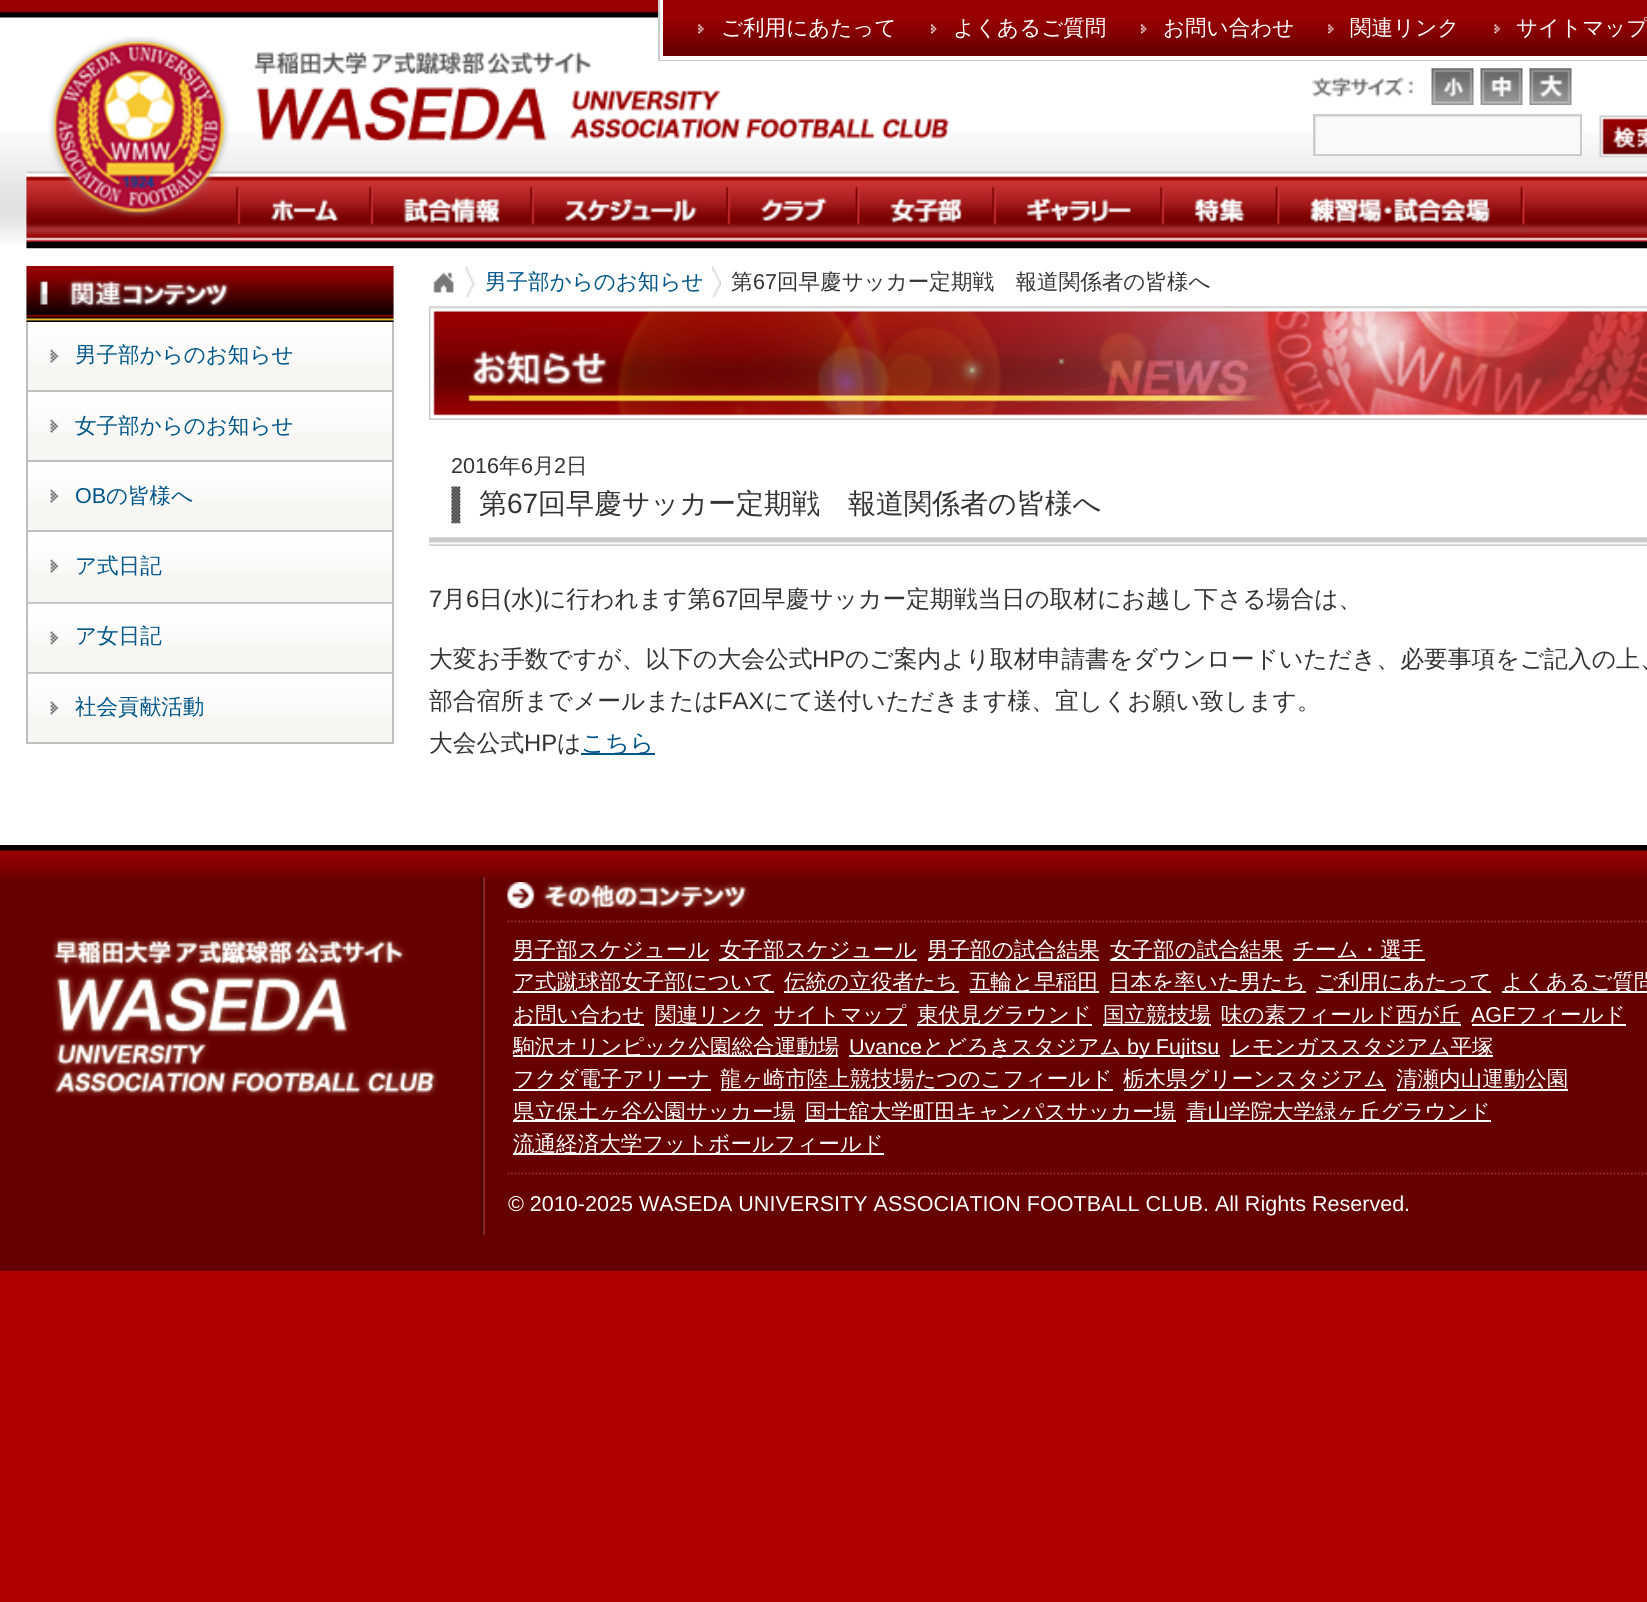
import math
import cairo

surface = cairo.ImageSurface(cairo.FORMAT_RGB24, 1647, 1602)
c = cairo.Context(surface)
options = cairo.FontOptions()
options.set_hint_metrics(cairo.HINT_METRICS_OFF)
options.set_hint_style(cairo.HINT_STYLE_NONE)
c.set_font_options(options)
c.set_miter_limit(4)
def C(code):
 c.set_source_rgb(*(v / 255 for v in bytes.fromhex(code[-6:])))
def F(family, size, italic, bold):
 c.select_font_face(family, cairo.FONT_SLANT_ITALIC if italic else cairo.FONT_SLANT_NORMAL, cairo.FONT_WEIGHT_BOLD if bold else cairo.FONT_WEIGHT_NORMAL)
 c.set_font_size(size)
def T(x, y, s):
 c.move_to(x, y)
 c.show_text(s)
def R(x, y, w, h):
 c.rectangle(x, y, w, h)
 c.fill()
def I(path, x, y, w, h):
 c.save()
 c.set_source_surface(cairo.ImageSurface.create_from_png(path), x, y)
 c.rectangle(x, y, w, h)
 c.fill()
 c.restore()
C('b20000')
c.paint()
C('ffffff')
R(0,17,1647,828)
I('1.png',0,0,658,18)
I('2.png',0,132,1647,112)
I('8.png',253,52,697,89)
C('cccccc')
R(658,0,989,61)
C('ffffff')
R(660,0,987,60)
C('990000')
R(663,0,984,56)
I('3.png',663,21,984,35)
I('4.png',698,24,6,10)
F('WenQuanYi Zen Hei Medium',21.55,0,0)
C('ffffff')
T(721,35,'ご利用にあたって')
I('5.png',931,24,6,10)
T(953,35,'よくあるご質問')
I('5.png',1141,24,6,10)
T(1163,35,'お問い合わせ')
I('4.png',1328,24,6,10)
T(1350,35,'関連リンク')
I('6.png',1494,24,6,10)
T(1516,35,'サイトマップ')
I('11.png',26,171,1621,78)
I('7.png',48,36,182,182)
I('9.png',1312,68,260,37)
C('f9f9f9')
R(1316,117,264,37)
c.save()
c.rectangle(1314,116,266,38)
c.clip()
C('e0e0e0')
c.set_fill_rule(cairo.FILL_RULE_EVEN_ODD)
c.new_path()
c.move_to(1141,-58)
c.line_to(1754,-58)
c.line_to(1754,327)
c.line_to(1141,327)
c.close_path()
c.move_to(1316,117)
c.line_to(1582,117)
c.line_to(1582,156)
c.line_to(1316,156)
c.close_path()
c.fill()
c.restore()
c.rectangle(1314,115,267,40)
C('cccccc')
c.stroke()
I('10.png',1599,115,48,43)
I('12.png',26,266,368,56)
C('bfbfbf')
R(26,322,368,422)
C('f7f6f3')
R(28,363,364,27)
I('13.png',28,322,364,41)
C('005588')
T(75,362,'男子部からのお知らせ')
C('f7f6f3')
R(28,433,364,27)
I('13.png',28,392,364,41)
C('005588')
T(75,433,'女子部からのお知らせ')
C('f7f6f3')
R(28,503,364,27)
I('13.png',28,462,364,41)
F('Liberation Sans',21.55,0,0)
C('005588')
T(75,503,'OB')
F('WenQuanYi Zen Hei Medium',21.55,0,0)
T(106,503,'の皆様へ')
C('f7f6f3')
R(28,573,364,29)
I('13.png',28,532,364,41)
C('005588')
T(75,573,'ア式日記')
C('f7f6f3')
R(28,645,364,27)
I('14.png',28,603,364,42)
C('005588')
T(75,643,'ア女日記')
C('f7f6f3')
R(28,715,364,27)
I('14.png',28,673,364,42)
C('005588')
T(75,714,'社会貢献活動')
I('15.png',465,266,10,32)
I('16.png',433,272,21,21)
I('17.png',712,266,9,32)
T(485,289,'男子部からのお知らせ')
C('333333')
T(731,289,'第')
F('Liberation Sans',21.55,0,0)
T(753,289,'67')
F('WenQuanYi Zen Hei Medium',21.55,0,0)
T(777,289,'回早慶サッカー定期戦　報道関係者の皆様へ')
I('18.png',429,306,1218,114)
I('19.png',429,537,1218,9)
F('Liberation Sans',21.55,0,0)
T(451,473,'2016')
F('WenQuanYi Zen Hei Medium',21.55,0,0)
T(499,473,'年')
F('Liberation Sans',21.55,0,0)
T(521,473,'6')
F('WenQuanYi Zen Hei Medium',21.55,0,0)
T(533,473,'月')
F('Liberation Sans',21.55,0,0)
T(554,473,'2')
F('WenQuanYi Zen Hei Medium',21.55,0,0)
T(566,473,'日')
I('20.png',451,486,10,38)
F('WenQuanYi Zen Hei Medium',28,0,0)
T(479,513,'第')
F('Liberation Sans',28,0,0)
T(507,513,'67')
F('WenQuanYi Zen Hei Medium',28,0,0)
T(538,513,'回早慶サッカー定期戦　報道関係者の皆様へ')
F('Liberation Sans',23.8,0,0)
T(429,607,'7')
F('WenQuanYi Zen Hei Medium',23.8,0,0)
T(442,607,'月')
F('Liberation Sans',23.8,0,0)
T(466,607,'6')
F('WenQuanYi Zen Hei Medium',23.8,0,0)
T(479,607,'日')
F('Liberation Sans',23.8,0,0)
T(503,607,'(')
F('WenQuanYi Zen Hei Medium',23.8,0,0)
T(511,607,'水')
F('Liberation Sans',23.8,0,0)
T(535,607,')')
F('WenQuanYi Zen Hei Medium',23.8,0,0)
T(542,607,'に行われます第')
F('Liberation Sans',23.8,0,0)
T(712,607,'67')
F('WenQuanYi Zen Hei Medium',23.8,0,0)
T(738,607,'回早慶サッカー定期戦当日の取材にお越し下さる場合は、')
T(429,667,'大変お手数ですが、以下の大会公式')
F('Liberation Sans',23.8,0,0)
T(812,667,'HP')
F('WenQuanYi Zen Hei Medium',23.8,0,0)
T(845,667,'のご案内より取材申請書をダウンロードいただき、必要事項をご記入の上、')
T(429,709,'部合宿所までメールまたは')
F('Liberation Sans',23.8,0,0)
T(718,709,'FAX')
F('WenQuanYi Zen Hei Medium',23.8,0,0)
T(765,709,'にて送付いただきます様、宜しくお願い致します。')
T(429,751,'大会公式')
F('Liberation Sans',23.8,0,0)
T(524,751,'HP')
F('WenQuanYi Zen Hei Medium',23.8,0,0)
T(557,751,'は')
C('005588')
R(581,753,74,2)
T(581,751,'こちら')
C('660000')
R(0,845,1647,426)
I('21.png',0,845,1647,35)
I('22.png',52,938,386,158)
I('23.png',481,877,4,359)
I('24.png',507,882,243,27)
c.new_path()
c.move_to(507.5,921.5)
c.line_to(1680,921.5)
C('9e2e2e')
c.set_line_width(1.8)
c.set_dash([1.75,1.75])
c.stroke()
c.new_path()
c.move_to(507.5,1173.5)
c.line_to(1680,1173.5)
c.stroke()
C('ffffff')
R(513,959,196,2)
F('WenQuanYi Zen Hei Medium',21.55,0,0)
T(513,957,'男子部スケジュール')
R(719,959,198,2)
T(720,957,'女子部スケジュール')
R(928,959,171,2)
T(927,957,'男子部の試合結果')
R(1110,959,173,2)
T(1110,957,'女子部の試合結果')
R(1293,959,132,2)
T(1293,957,'チーム・選手')
R(513,991,261,2)
T(513,989,'ア式蹴球部女子部について')
R(784,991,175,2)
T(784,989,'伝統の立役者たち')
R(970,991,129,2)
T(969,989,'五輪と早稲田')
R(1110,991,196,2)
T(1109,989,'日本を率いた男たち')
R(1316,991,175,2)
T(1316,989,'ご利用にあたって')
R(1502,991,145,2)
T(1502,989,'よくあるご質問')
R(513,1024,131,2)
T(513,1022,'お問い合わせ')
R(655,1024,108,2)
T(655,1022,'関連リンク')
R(774,1024,133,2)
T(774,1022,'サイトマップ')
R(917,1024,175,2)
T(917,1022,'東伏見グラウンド')
R(1103,1024,108,2)
T(1103,1022,'国立競技場')
R(1222,1024,239,2)
T(1221,1022,'味の素フィールド西が丘')
F('Liberation Sans',21.55,0,0)
T(1471,1022,'AGF')
R(1472,1024,154,2)
F('WenQuanYi Zen Hei Medium',21.55,0,0)
T(1516,1022,'フィールド')
R(513,1055,325,2)
T(513,1054,'駒沢オリンピック公園総合運動場')
F('Liberation Sans',21.55,0,0)
T(849,1054,'Uvance')
R(849,1055,371,2)
F('WenQuanYi Zen Hei Medium',21.55,0,0)
T(923,1054,'とどろきスタジアム')
F('Liberation Sans',21.55,0,0)
T(1127,1054,'by Fujitsu')
R(1230,1055,263,2)
F('WenQuanYi Zen Hei Medium',21.55,0,0)
T(1230,1054,'レモンガススタジアム平塚')
R(513,1089,198,2)
T(513,1086,'フクダ電子アリーナ')
R(721,1089,392,2)
T(720,1086,'龍ヶ崎市陸上競技場たつのこフィールド')
R(1124,1089,262,2)
T(1123,1086,'栃木県グリーンスタジアム')
R(1397,1089,171,2)
T(1396,1086,'清瀬内山運動公園')
R(513,1120,282,2)
T(513,1119,'県立保土ヶ谷公園サッカー場')
R(805,1120,371,2)
T(805,1119,'国士舘大学町田キャンパスサッカー場')
R(1187,1120,304,2)
T(1186,1119,'青山学院大学緑ヶ丘グラウンド')
R(513,1153,371,2)
T(513,1151,'流通経済大学フットボールフィールド')
F('Liberation Sans',21.55,0,0)
T(508,1211,'© 2010-2025 WASEDA UNIVERSITY ASSOCIATION FOOTBALL CLUB. All Rights Reserved.')
surface.write_to_png('o.png')
